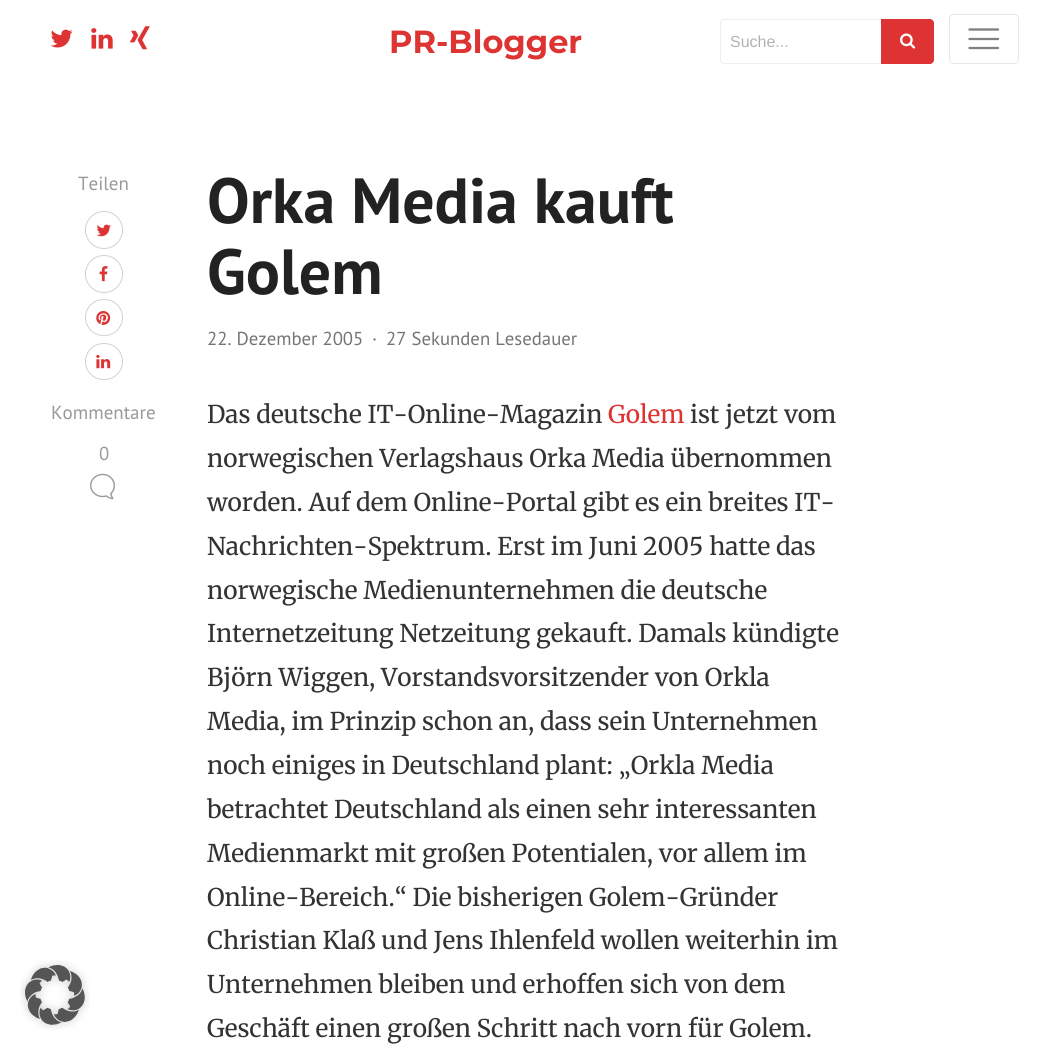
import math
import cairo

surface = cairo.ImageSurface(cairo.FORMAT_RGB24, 1056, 1050)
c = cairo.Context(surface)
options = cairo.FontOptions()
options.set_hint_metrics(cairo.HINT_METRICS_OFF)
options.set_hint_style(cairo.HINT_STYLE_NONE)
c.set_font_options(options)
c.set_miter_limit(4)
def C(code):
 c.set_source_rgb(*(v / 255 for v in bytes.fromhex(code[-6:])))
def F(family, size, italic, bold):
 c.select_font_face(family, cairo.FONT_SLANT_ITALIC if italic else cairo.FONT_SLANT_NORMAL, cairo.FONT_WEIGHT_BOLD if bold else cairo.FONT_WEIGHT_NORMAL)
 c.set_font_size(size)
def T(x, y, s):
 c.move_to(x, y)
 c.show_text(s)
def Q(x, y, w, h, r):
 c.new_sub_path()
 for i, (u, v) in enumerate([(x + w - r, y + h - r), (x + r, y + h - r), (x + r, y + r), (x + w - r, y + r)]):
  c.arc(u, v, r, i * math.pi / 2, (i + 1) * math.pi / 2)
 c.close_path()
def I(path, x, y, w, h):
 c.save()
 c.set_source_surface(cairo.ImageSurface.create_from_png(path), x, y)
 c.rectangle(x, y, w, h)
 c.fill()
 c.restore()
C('ffffff')
c.paint()
I('1.png',50,29,23,19)
I('2.png',91,28,22,21)
I('3.png',130,26,20,24)
F('Montserrat',32,0,1)
C('dd3333')
T(389,53,'PR-Blogger')
c.new_path()
c.move_to(724,19.5)
c.line_to(882.5,19.5)
c.line_to(882.5,63.5)
c.line_to(724,63.5)
c.curve_to(722,63.5,720.5,62,720.5,60)
c.line_to(720.5,23)
c.curve_to(720.5,21,722,19.5,724,19.5)
c.close_path()
C('eeeeee')
c.set_line_width(1)
c.stroke()
F('Liberation Sans',16,0,0)
C('b2b2b2')
T(730,47,'Suche...')
C('dd3333')
c.new_path()
c.move_to(881,19)
c.line_to(930,19)
c.curve_to(932,19,934,21,934,23)
c.line_to(934,60)
c.curve_to(934,62,932,64,930,64)
c.line_to(881,64)
c.close_path()
c.fill()
I('4.png',900,33,16,16)
Q(949.5,14.5,69,49,4.5)
C('e6e6e6')
c.stroke()
c.new_path()
c.move_to(969.5,29.5)
c.line_to(998,29.5)
c.move_to(969.5,39)
c.line_to(998,39)
c.move_to(969.5,48)
c.line_to(998,48)
C('808080')
c.set_line_width(2.3)
c.set_line_cap(cairo.LINE_CAP_ROUND)
c.stroke()
F('PT Sans',19,0,0)
C('999999')
T(78,190,'Teilen')
c.new_path()
c.arc(104,230,18.5,0,2 * math.pi)
C('d2d2d2')
c.set_line_width(1)
c.set_line_cap(cairo.LINE_CAP_BUTT)
c.stroke()
I('5.png',97,224,14,13)
c.arc(104,274,18.5,0,2 * math.pi)
c.stroke()
I('6.png',99,266,9,16)
Q(85.5,299.5,37,36,18)
c.stroke()
I('7.png',96,311,15,14)
Q(85.5,343.5,37,36,18)
c.stroke()
I('8.png',96,354,15,15)
C('999999')
T(51,419,'Kommentare')
F('PT Sans',18.75,0,0)
T(99,460,'0')
I('9.png',90,473,25,27)
F('PT Sans',63.75,0,1)
C('222222')
T(207,223,'Orka Media kauft')
T(207,294,'Golem')
F('PT Sans',18.75,0,0)
C('757575')
T(207,345,'22. Dezember 2005')
C('5f636d')
T(372,345,'·')
C('757575')
T(386,345,'27 Sekunden Lesedauer')
F('Merriweather',24.4,0,0)
C('333333')
T(207,423,'Das deutsche IT-Online-Magazin')
C('dd3333')
T(608,423,'Golem')
C('333333')
T(690,423,'ist jetzt vom')
T(207,467,'norwegischen Verlagshaus Orka Media übernommen')
T(207,511,'worden. Auf dem Online-Portal gibt es ein breites IT-')
T(207,555,'Nachrichten-Spektrum. Erst im Juni 2005 hatte das')
T(207,599,'norwegische Medienunternehmen die deutsche')
T(207,642,'Internetzeitung Netzeitung gekauft. Damals kündigte')
T(207,686,'Björn Wiggen, Vorstandsvorsitzender von Orkla')
T(207,730,'Media, im Prinzip schon an, dass sein Unternehmen')
T(207,774,'noch einiges in Deutschland plant: „Orkla Media')
T(207,818,'betrachtet Deutschland als einen sehr interessanten')
T(207,862,'Medienmarkt mit großen Potentialen, vor allem im')
T(207,906,'Online-Bereich.“ Die bisherigen Golem-Gründer')
T(207,949,'Christian Klaß und Jens Ihlenfeld wollen weiterhin im')
T(207,993,'Unternehmen bleiben und erhoffen sich von dem')
T(207,1037,'Geschäft einen großen Schritt nach vorn für Golem.')
I('10.png',20,960,70,70)
surface.write_to_png('o.png')
